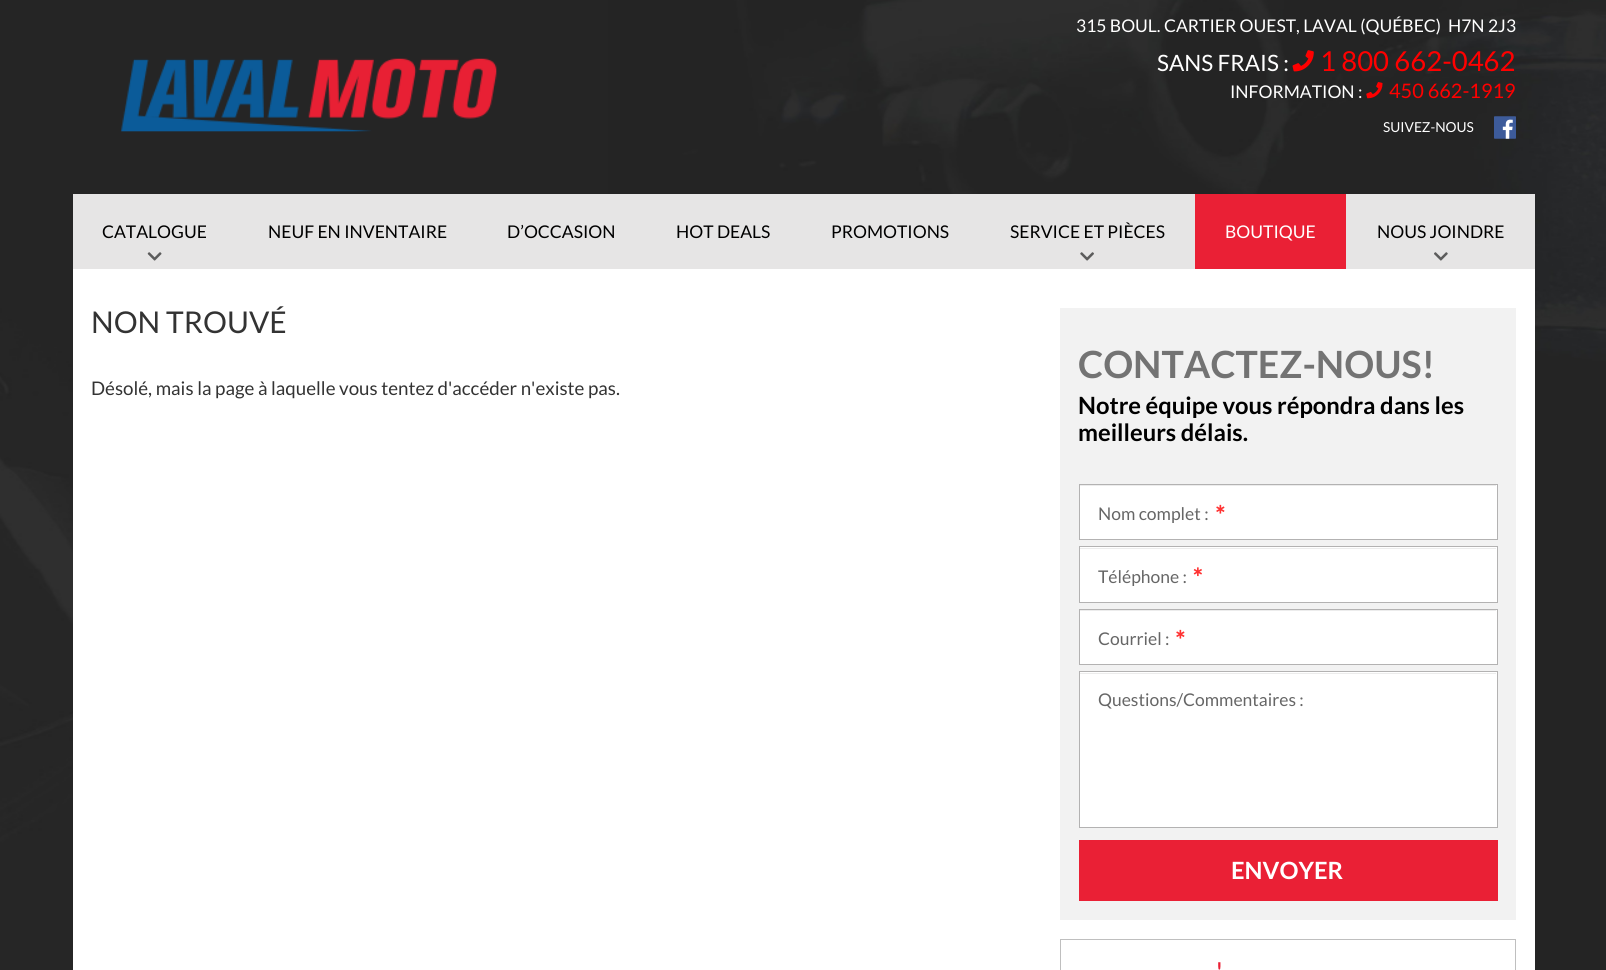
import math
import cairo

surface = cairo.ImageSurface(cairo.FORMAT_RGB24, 1606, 970)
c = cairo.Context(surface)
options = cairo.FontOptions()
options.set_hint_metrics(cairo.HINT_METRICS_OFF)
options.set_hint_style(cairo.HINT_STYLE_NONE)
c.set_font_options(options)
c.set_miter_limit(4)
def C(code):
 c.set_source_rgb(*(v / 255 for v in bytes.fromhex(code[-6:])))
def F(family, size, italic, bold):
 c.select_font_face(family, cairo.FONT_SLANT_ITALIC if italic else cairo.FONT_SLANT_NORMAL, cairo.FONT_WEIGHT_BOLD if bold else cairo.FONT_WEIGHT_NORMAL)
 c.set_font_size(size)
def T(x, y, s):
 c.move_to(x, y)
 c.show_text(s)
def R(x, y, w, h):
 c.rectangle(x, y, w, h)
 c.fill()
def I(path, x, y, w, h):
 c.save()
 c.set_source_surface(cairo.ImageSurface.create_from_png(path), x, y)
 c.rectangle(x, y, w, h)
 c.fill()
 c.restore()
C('ffffff')
c.paint()
I('1.png',0,0,1606,970)
I('2.png',121,58,376,74)
F('Lato',17.5,0,0)
C('ffffff')
T(1076,32,'315 BOUL. CARTIER OUEST, LAVAL (QUÉBEC)')
T(1448,32,'H7N 2J3')
F('Lato',22.5,0,0)
T(1157,71,'SANS FRAIS :')
I('3.png',1292,50,22,22)
F('Lato',27.5,0,0)
C('ff0000')
T(1320,71,'1 800 662-0462')
F('Lato',17.5,0,0)
C('ffffff')
T(1230,98,'INFORMATION :')
I('4.png',1366,82,17,17)
F('Lato',20,0,0)
C('ff0000')
T(1389,98,'450 662-1919')
F('Lato',13.75,0,0)
C('ffffff')
T(1383,132,'SUIVEZ-NOUS')
I('5.png',1494,116,22,23)
C('e6e5e5')
R(73,194,1462,75)
F('Lato',17.5,0,0)
C('000000')
T(102,238,'CATALOGUE')
I('6.png',147,252,15,9)
T(268,238,'NEUF EN INVENTAIRE')
T(507,238,'D’OCCASION')
T(676,238,'HOT DEALS')
T(831,238,'PROMOTIONS')
T(1010,238,'SERVICE ET PIÈCES')
I('7.png',1080,252,14,9)
C('ea2035')
R(1195,194,151,75)
C('ffffff')
T(1225,238,'BOUTIQUE')
C('000000')
T(1377,238,'NOUS JOINDRE')
I('8.png',1434,252,14,9)
C('ffffff')
R(73,269,1462,701)
F('Lato',30,0,0)
C('333333')
T(91,333,'NON TROUVÉ')
F('Lato',18.75,0,0)
T(91,395,'Désolé, mais la page à laquelle vous tentez d\'accéder n\'existe pas.')
C('f2f2f2')
R(1060,308,456,612)
F('Lato',37.5,0,1)
C('737373')
T(1078,378,'CONTACTEZ-NOUS!')
F('Lato',23.75,0,1)
C('000000')
T(1078,414,'Notre équipe vous répondra dans les')
T(1078,441,'meilleurs délais.')
C('ffffff')
R(1080,485,417,54)
C('ececec')
R(1080,485,416,1)
c.rectangle(1079.5,484.5,418,55)
C('b3b2b2')
c.set_line_width(1)
c.stroke()
F('Lato',17.5,0,0)
C('666666')
T(1098,520,'Nom complet :')
I('9.png',1216,504,9,10)
C('ffffff')
R(1080,547,417,55)
C('ececec')
R(1080,548,416,1)
c.rectangle(1079.5,546.5,418,56)
C('b3b2b2')
c.stroke()
C('666666')
T(1098,583,'Téléphone :')
I('10.png',1193,567,9,10)
C('ffffff')
R(1080,610,417,54)
C('ececec')
R(1080,610,416,1)
c.rectangle(1079.5,609.5,418,55)
C('b3b2b2')
c.stroke()
C('666666')
T(1098,645,'Courriel :')
I('9.png',1176,629,9,10)
C('ffffff')
R(1080,672,417,155)
C('ececec')
R(1080,673,416,1)
c.rectangle(1079.5,671.5,418,156)
C('b3b2b2')
c.stroke()
C('666666')
T(1098,706,'Questions/Commentaires :')
C('ea2035')
R(1079,840,419,61)
F('Lato',23.75,0,1)
C('ffffff')
T(1231,879,'ENVOYER')
c.rectangle(1060.5,939.5,455,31)
C('bfbfbf')
c.stroke()
F('Lato',29,0,0)
C('ea2035')
T(1216,983,'\'')
surface.write_to_png('o.png')
